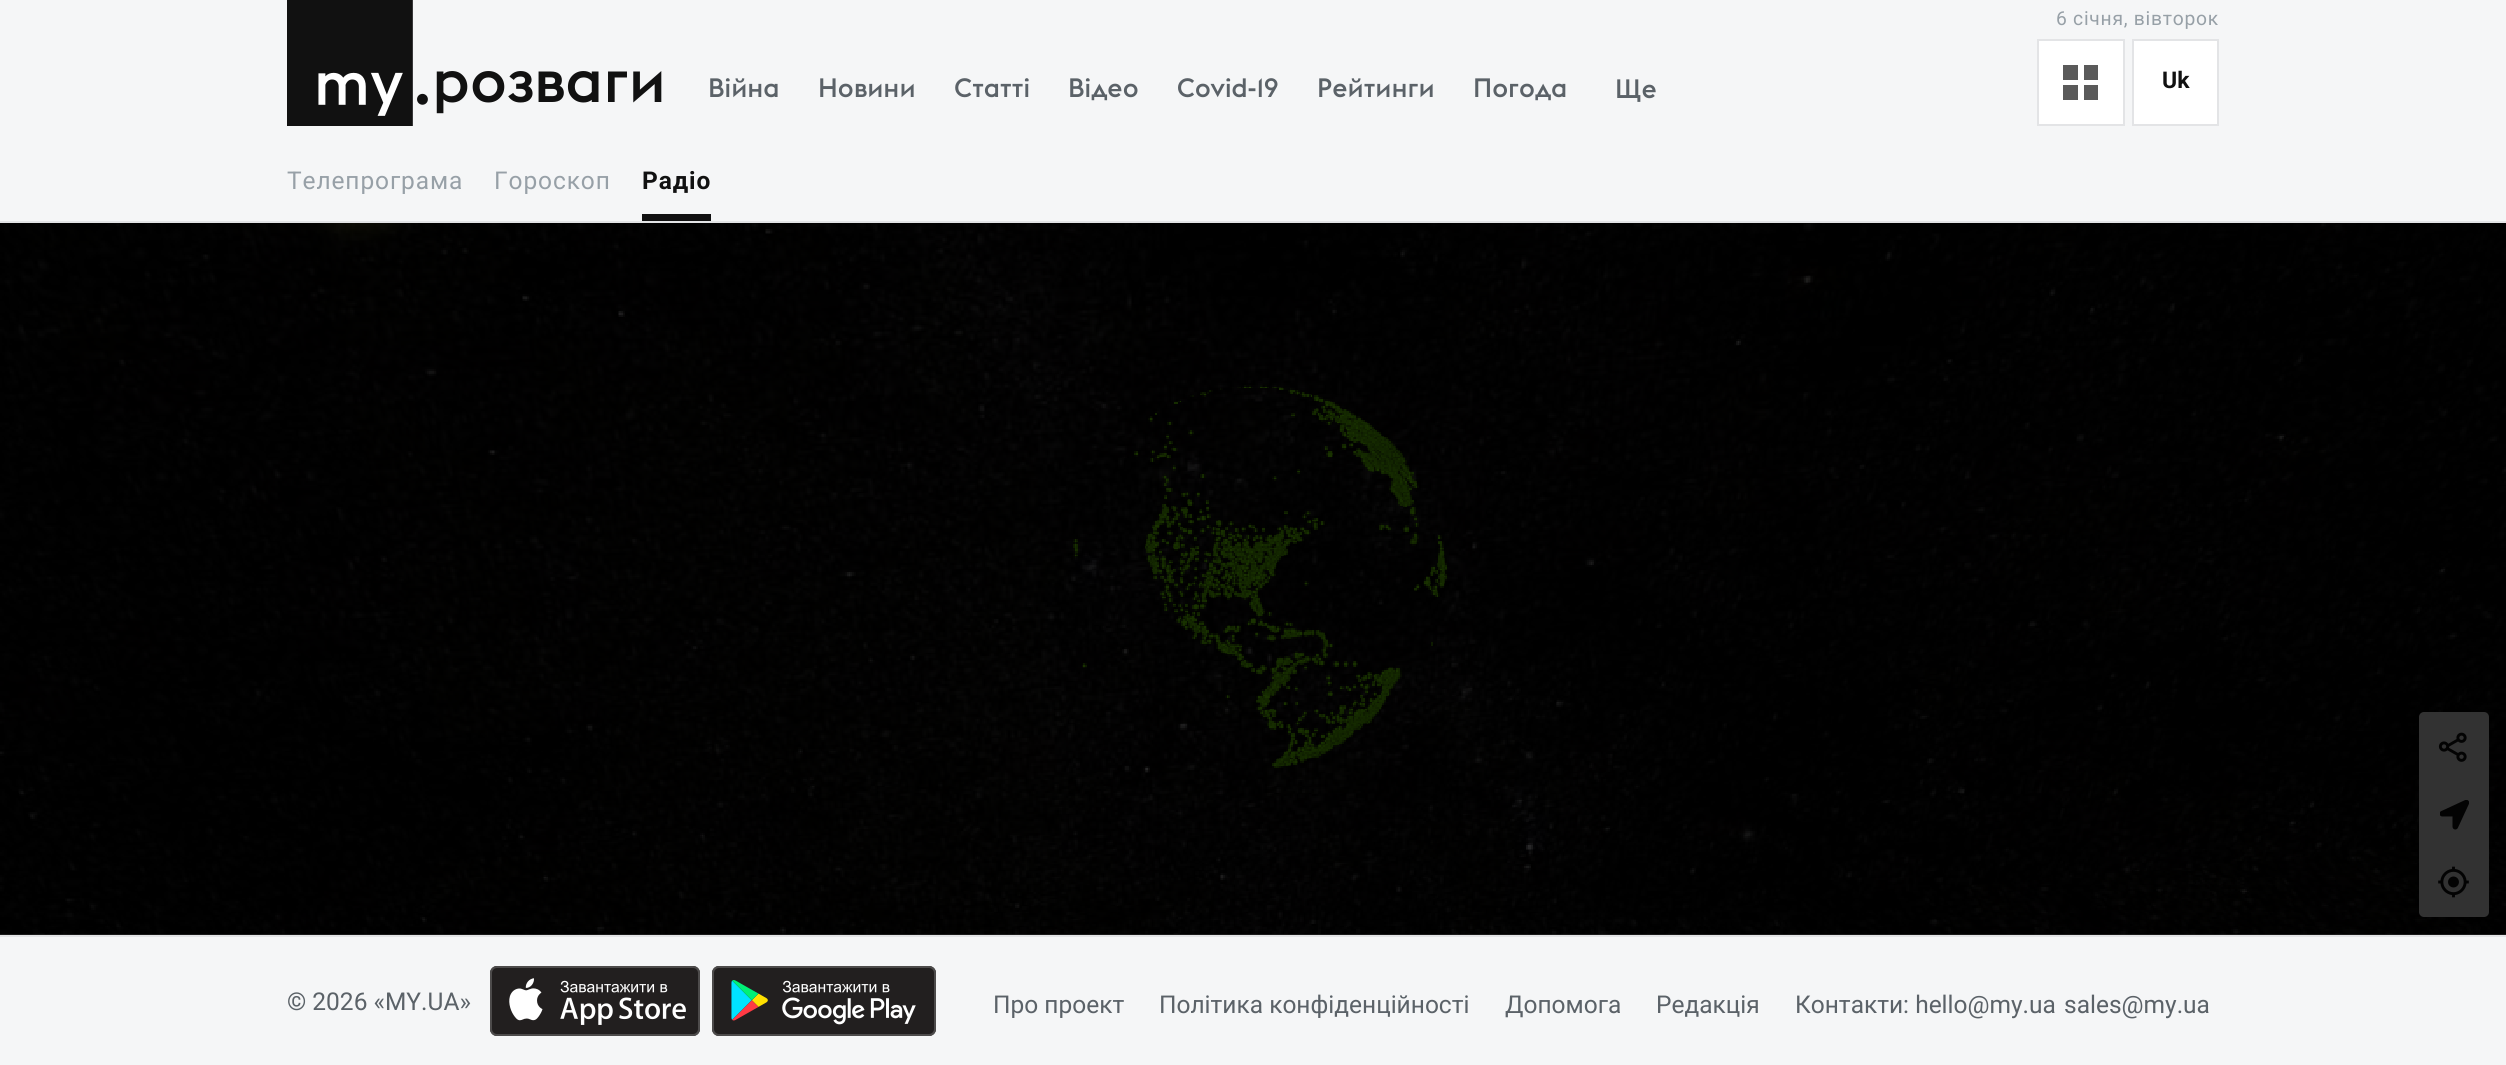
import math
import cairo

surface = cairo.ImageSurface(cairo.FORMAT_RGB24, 2506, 1065)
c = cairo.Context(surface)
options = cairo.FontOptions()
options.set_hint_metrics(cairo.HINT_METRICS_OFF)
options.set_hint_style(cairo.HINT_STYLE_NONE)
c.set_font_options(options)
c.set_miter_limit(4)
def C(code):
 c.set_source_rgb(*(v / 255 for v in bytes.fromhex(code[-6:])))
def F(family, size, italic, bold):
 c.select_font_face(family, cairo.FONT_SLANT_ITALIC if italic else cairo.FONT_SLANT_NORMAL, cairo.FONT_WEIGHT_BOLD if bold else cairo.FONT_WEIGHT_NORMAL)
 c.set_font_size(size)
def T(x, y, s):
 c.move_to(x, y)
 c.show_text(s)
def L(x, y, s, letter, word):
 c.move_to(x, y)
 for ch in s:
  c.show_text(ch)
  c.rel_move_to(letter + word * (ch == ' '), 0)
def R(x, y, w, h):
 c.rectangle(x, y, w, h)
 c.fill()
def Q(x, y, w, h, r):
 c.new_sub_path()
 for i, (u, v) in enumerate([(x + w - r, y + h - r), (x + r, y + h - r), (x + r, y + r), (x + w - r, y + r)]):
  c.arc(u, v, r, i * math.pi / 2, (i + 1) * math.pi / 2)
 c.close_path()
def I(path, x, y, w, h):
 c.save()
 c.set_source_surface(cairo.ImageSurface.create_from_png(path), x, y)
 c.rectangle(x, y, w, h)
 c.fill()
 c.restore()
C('333333')
c.paint()
C('f5f6f7')
R(0,0,2506,221)
C('e3e4e6')
R(0,221,2506,2)
I('1.png',287,0,141,126)
F('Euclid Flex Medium',61,0,0)
C('111111')
T(432,102,'розваги')
F('Euclid Flex Medium',26.25,0,0)
C('5b6268')
T(708,97,'Війна')
T(818,97,'Новини')
T(954,97,'Статті')
T(1068,97,'Відео')
T(1177,97,'Covid-19')
T(1317,97,'Рейтинги')
T(1473,97,'Погода')
T(1615,98,'Ще')
F('Roboto',19.25,0,0)
C('97a0a7')
L(2056,25,'6 січня, вівторок',.75,0)
C('ffffff')
c.rectangle(2038,40,86,85)
c.fill_preserve()
C('e3e4e6')
c.stroke()
C('5a5a5a')
R(2063,65,15,15)
R(2084,65,14,15)
R(2084,85,14,15)
R(2063,85,15,15)
C('ffffff')
c.rectangle(2133,40,85,85)
c.fill_preserve()
C('e3e4e6')
c.stroke()
F('Roboto',23,0,1)
C('111111')
T(2162,88,'Uk')
F('Roboto',24.5,0,0)
C('97a0a7')
L(287,189,'Телепрограма',.9,0)
L(494,189,'Гороскоп',.9,0)
C('111111')
R(642,214,69,7)
F('Roboto',24.5,0,1)
L(642,189,'Радіо',.9,0)
I('2.png',0,223,2506,712)
C('323232')
Q(2419,712,70,205,5)
c.fill()
I('3.png',2438,732,29,30)
I('4.png',2440,800,29,30)
I('5.png',2438,866,31,32)
C('f5f6f7')
R(0,937,2506,128)
C('e3e4e6')
R(0,935,2506,2)
F('Roboto',24.5,0,0)
C('5b6268')
T(287,1010,'© 2026 «MY.UA»')
I('6.png',490,966,210,70)
I('7.png',712,966,224,70)
T(993,1013,'Про проект')
T(1159,1013,'Політика конфіденційності')
T(1505,1013,'Допомога')
T(1656,1013,'Редакція')
T(1795,1013,'Контакти: hello@my.ua')
T(2064,1013,'sales@my.ua')
surface.write_to_png('o.png')
